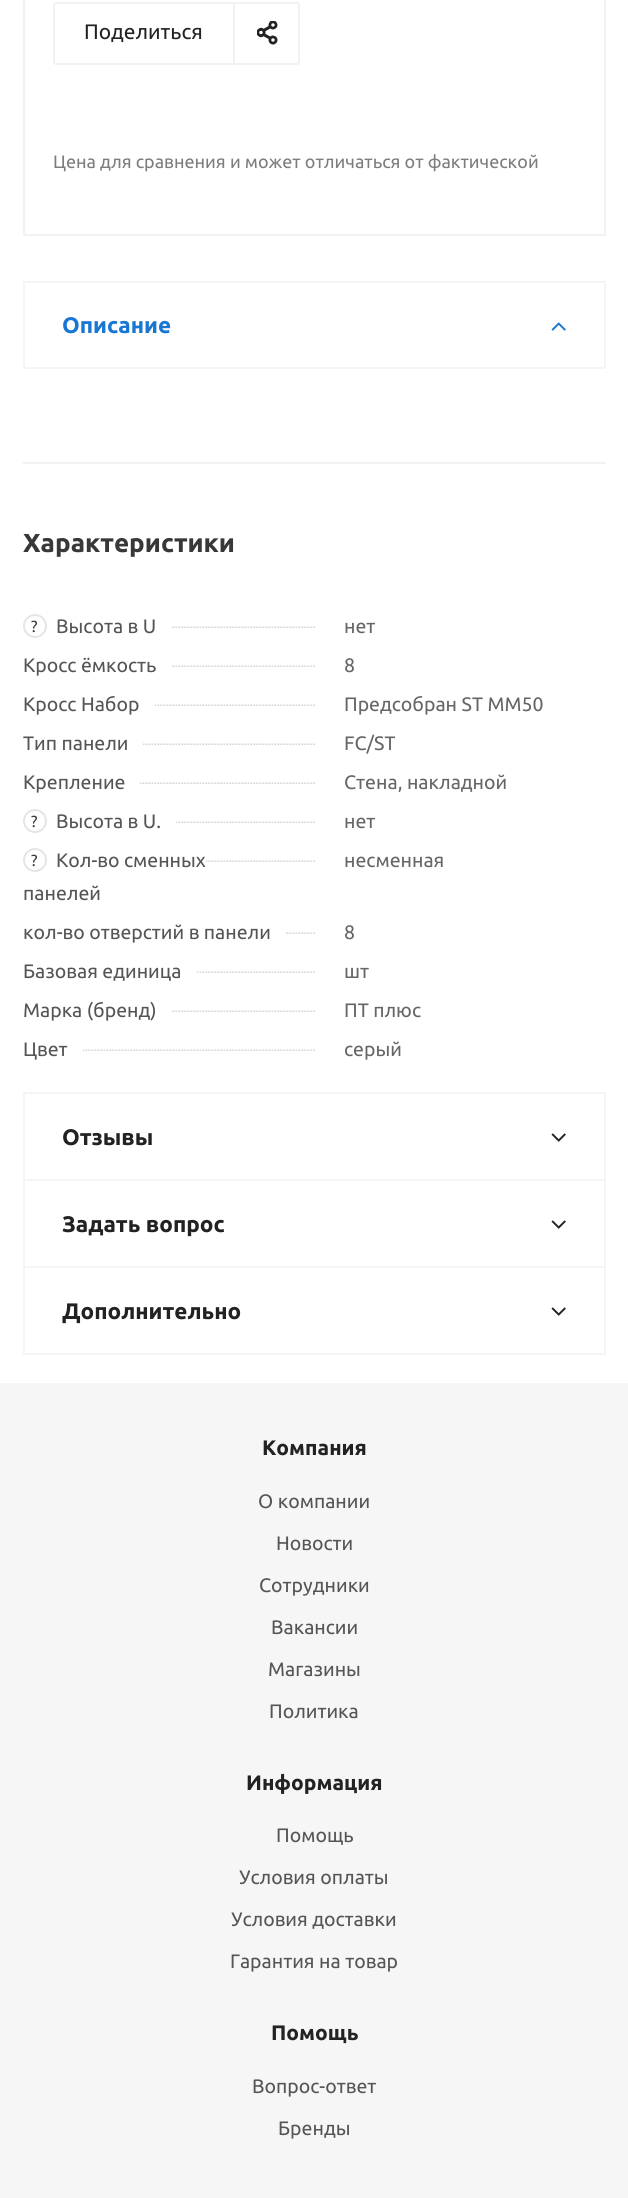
import math
import cairo

surface = cairo.ImageSurface(cairo.FORMAT_RGB24, 628, 2198)
c = cairo.Context(surface)
options = cairo.FontOptions()
options.set_hint_metrics(cairo.HINT_METRICS_OFF)
options.set_hint_style(cairo.HINT_STYLE_NONE)
c.set_font_options(options)
c.set_miter_limit(4)
def C(code):
 c.set_source_rgb(*(v / 255 for v in bytes.fromhex(code[-6:])))
def F(family, size, italic, bold):
 c.select_font_face(family, cairo.FONT_SLANT_ITALIC if italic else cairo.FONT_SLANT_NORMAL, cairo.FONT_WEIGHT_BOLD if bold else cairo.FONT_WEIGHT_NORMAL)
 c.set_font_size(size)
def T(x, y, s):
 c.move_to(x, y)
 c.show_text(s)
def R(x, y, w, h):
 c.rectangle(x, y, w, h)
 c.fill()
def Q(x, y, w, h, r):
 c.new_sub_path()
 for i, (u, v) in enumerate([(x + w - r, y + h - r), (x + r, y + h - r), (x + r, y + r), (x + w - r, y + r)]):
  c.arc(u, v, r, i * math.pi / 2, (i + 1) * math.pi / 2)
 c.close_path()
def I(path, x, y, w, h):
 c.save()
 c.set_source_surface(cairo.ImageSurface.create_from_png(path), x, y)
 c.rectangle(x, y, w, h)
 c.fill()
 c.restore()
C('ffffff')
c.paint()
c.rectangle(24,-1,581,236)
C('f2f2f2')
c.stroke()
R(233,2,2,63)
I('1.png',257,21,21,24)
Q(54,3,245,61,2)
c.stroke()
F('Ubuntu',21,0,0)
C('222222')
T(84,39,'Поделиться')
F('Ubuntu',18,0,0)
C('7d7d7d')
T(53,168,'Цена для сравнения и может отличаться от фактической')
c.rectangle(24,282,581,86)
C('f5f5f5')
c.stroke()
F('Ubuntu',22.5,0,1)
C('1976d2')
T(62,333,'Описание')
I('2.png',551,322,15,9)
C('f2f2f2')
R(23,462,583,2)
F('Ubuntu',26,0,1)
C('383838')
T(23,552,'Характеристики')
I('3.png',171,626,144,2)
c.arc(35,626,11,0,2 * math.pi)
C('e5e5e5')
c.stroke()
F('Ubuntu',16,0,0)
C('383838')
T(31,632,'?')
F('Ubuntu',19.5,0,0)
C('555555')
T(56,633,'Высота в U')
C('666666')
T(344,633,'нет')
I('3.png',171,665,144,2)
C('555555')
T(23,672,'Кросс ёмкость')
C('666666')
T(344,672,'8')
I('4.png',155,704,160,2)
C('555555')
T(23,711,'Кросс Набор')
C('666666')
T(344,711,'Предсобран ST MM50')
I('5.png',143,743,172,2)
C('555555')
T(23,750,'Тип панели')
C('666666')
T(344,750,'FC/ST')
I('6.png',140,782,175,2)
C('555555')
T(23,789,'Крепление')
C('666666')
T(344,789,'Стена, накладной')
I('7.png',176,821,139,2)
c.arc(35,821,11,0,2 * math.pi)
C('e5e5e5')
c.stroke()
F('Ubuntu',16,0,0)
C('383838')
T(31,827,'?')
F('Ubuntu',19.5,0,0)
C('555555')
T(56,828,'Высота в U.')
C('666666')
T(344,828,'нет')
I('8.png',206,860,109,2)
C('555555')
T(56,867,'Кол-во сменных')
T(23,900,'панелей')
c.new_path()
c.arc(35,860,11,0,2 * math.pi)
C('e5e5e5')
c.stroke()
F('Ubuntu',16,0,0)
C('383838')
T(31,866,'?')
F('Ubuntu',19.5,0,0)
C('666666')
T(344,867,'несменная')
I('9.png',285,932,30,2)
C('555555')
T(23,939,'кол-во отверстий в панели')
C('666666')
T(344,939,'8')
I('10.png',197,971,118,2)
C('555555')
T(23,978,'Базовая единица')
C('666666')
T(344,978,'шт')
I('3.png',171,1010,144,2)
C('555555')
T(23,1017,'Марка (бренд)')
C('666666')
T(344,1017,'ПТ плюс')
I('11.png',83,1049,232,2)
C('555555')
T(23,1056,'Цвет')
C('666666')
T(344,1056,'серый')
c.rectangle(24,1093,581,87)
C('f5f5f5')
c.stroke()
F('Ubuntu',22.5,0,1)
C('222222')
T(62,1145,'Отзывы')
I('12.png',551,1133,15,9)
c.rectangle(24,1180,581,87)
C('f5f5f5')
c.stroke()
C('222222')
T(62,1232,'Задать вопрос')
I('12.png',551,1220,15,9)
c.rectangle(24,1267,581,87)
C('f5f5f5')
c.stroke()
C('222222')
T(62,1319,'Дополнительно')
I('12.png',551,1307,15,9)
C('f6f6f7')
R(0,1383,628,815)
F('Ubuntu',21,0,1)
C('222222')
T(262,1455,'Компания')
F('Ubuntu',19.5,0,0)
C('555555')
T(258,1508,'О компании')
T(276,1550,'Новости')
T(259,1592,'Сотрудники')
T(271,1634,'Вакансии')
T(268,1676,'Магазины')
T(269,1718,'Политика')
F('Ubuntu',21,0,1)
C('222222')
T(246,1790,'Информация')
F('Ubuntu',19.5,0,0)
C('555555')
T(276,1842,'Помощь')
T(239,1884,'Условия оплаты')
T(231,1926,'Условия доставки')
T(230,1968,'Гарантия на товар')
F('Ubuntu',21,0,1)
C('222222')
T(271,2040,'Помощь')
F('Ubuntu',19.5,0,0)
C('555555')
T(252,2093,'Вопрос-ответ')
T(278,2135,'Бренды')
surface.write_to_png('o.png')
